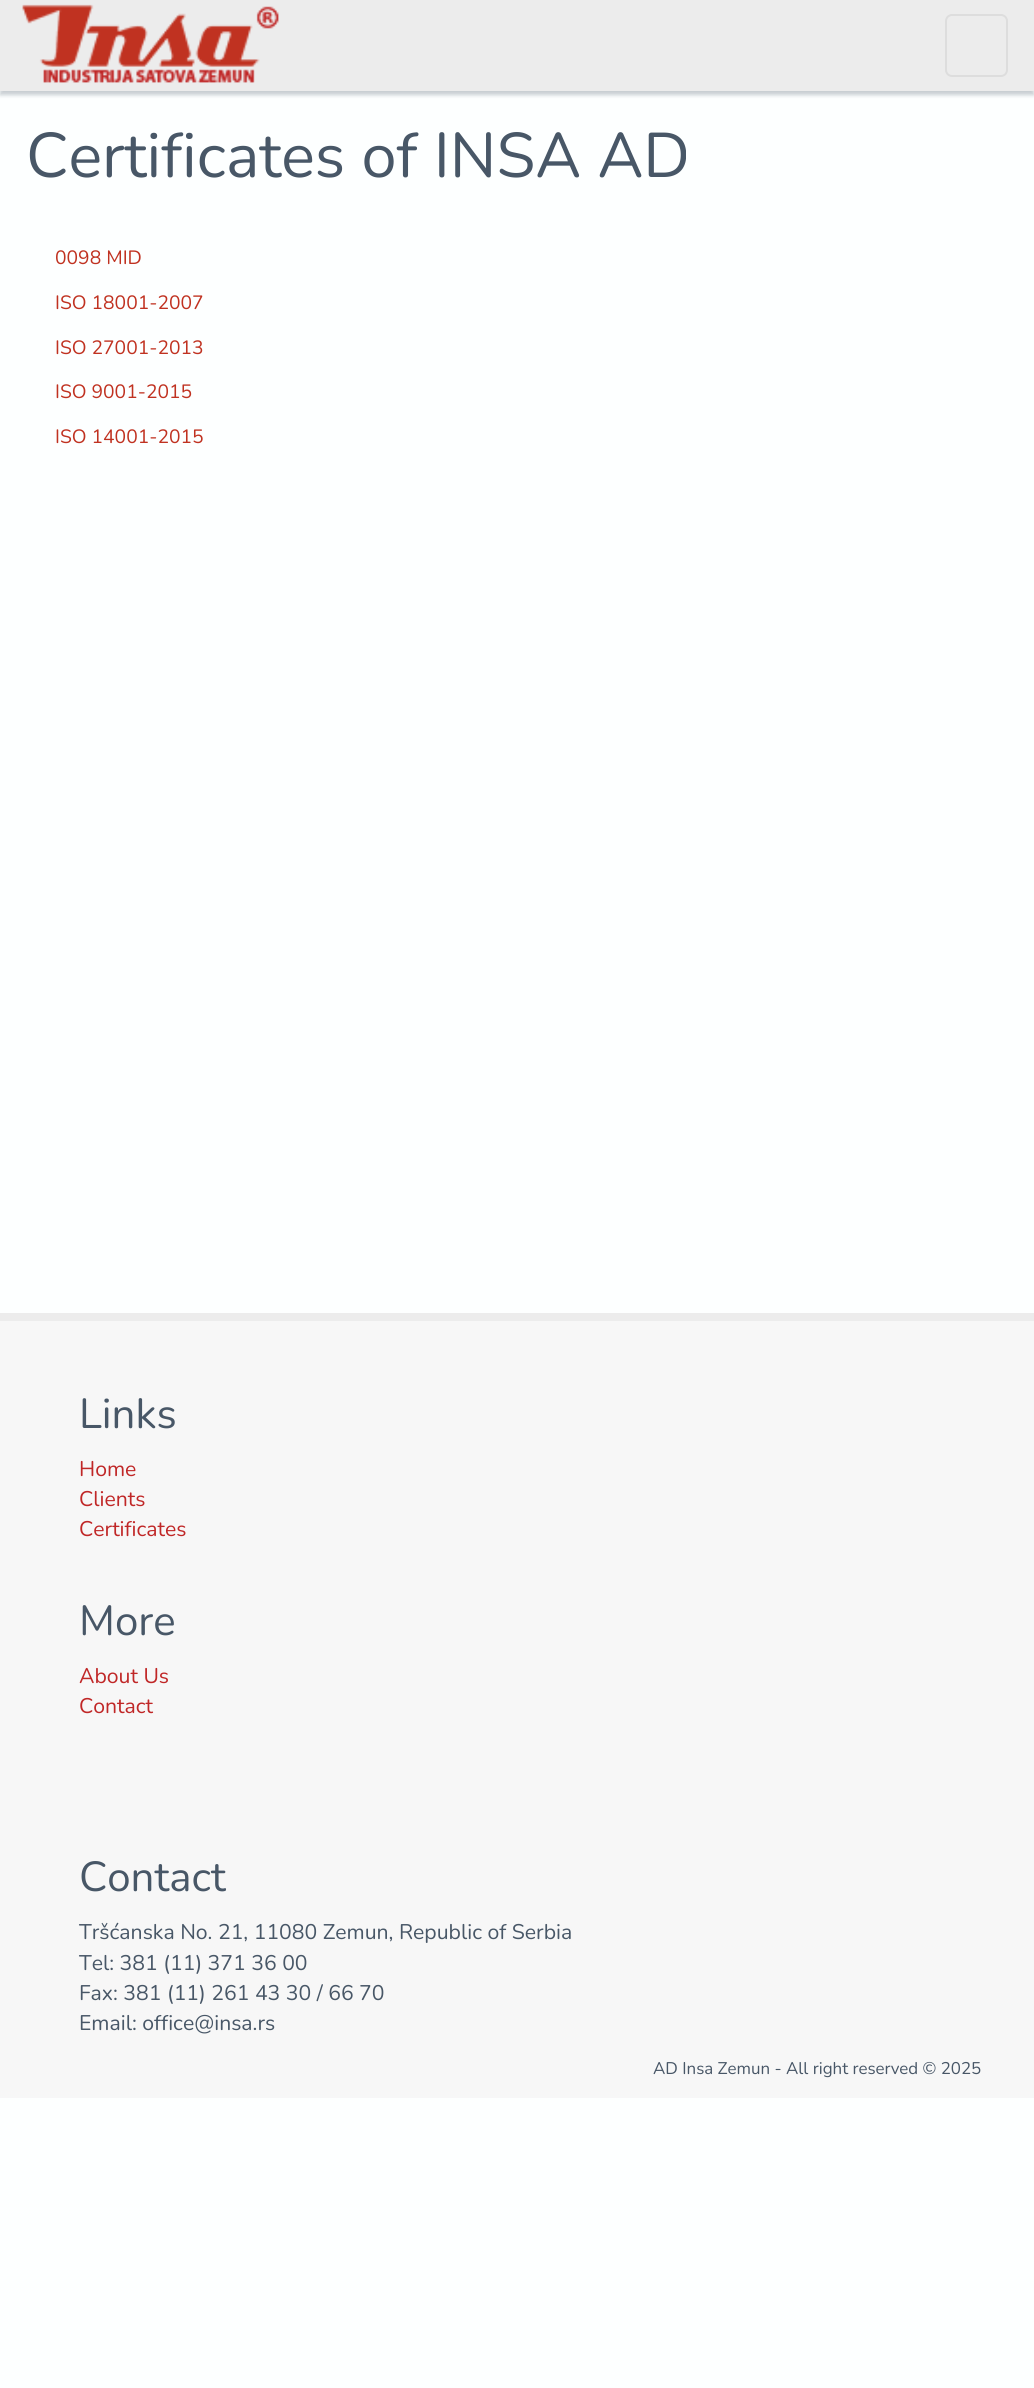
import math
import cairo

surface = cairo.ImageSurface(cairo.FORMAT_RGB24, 1034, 2388)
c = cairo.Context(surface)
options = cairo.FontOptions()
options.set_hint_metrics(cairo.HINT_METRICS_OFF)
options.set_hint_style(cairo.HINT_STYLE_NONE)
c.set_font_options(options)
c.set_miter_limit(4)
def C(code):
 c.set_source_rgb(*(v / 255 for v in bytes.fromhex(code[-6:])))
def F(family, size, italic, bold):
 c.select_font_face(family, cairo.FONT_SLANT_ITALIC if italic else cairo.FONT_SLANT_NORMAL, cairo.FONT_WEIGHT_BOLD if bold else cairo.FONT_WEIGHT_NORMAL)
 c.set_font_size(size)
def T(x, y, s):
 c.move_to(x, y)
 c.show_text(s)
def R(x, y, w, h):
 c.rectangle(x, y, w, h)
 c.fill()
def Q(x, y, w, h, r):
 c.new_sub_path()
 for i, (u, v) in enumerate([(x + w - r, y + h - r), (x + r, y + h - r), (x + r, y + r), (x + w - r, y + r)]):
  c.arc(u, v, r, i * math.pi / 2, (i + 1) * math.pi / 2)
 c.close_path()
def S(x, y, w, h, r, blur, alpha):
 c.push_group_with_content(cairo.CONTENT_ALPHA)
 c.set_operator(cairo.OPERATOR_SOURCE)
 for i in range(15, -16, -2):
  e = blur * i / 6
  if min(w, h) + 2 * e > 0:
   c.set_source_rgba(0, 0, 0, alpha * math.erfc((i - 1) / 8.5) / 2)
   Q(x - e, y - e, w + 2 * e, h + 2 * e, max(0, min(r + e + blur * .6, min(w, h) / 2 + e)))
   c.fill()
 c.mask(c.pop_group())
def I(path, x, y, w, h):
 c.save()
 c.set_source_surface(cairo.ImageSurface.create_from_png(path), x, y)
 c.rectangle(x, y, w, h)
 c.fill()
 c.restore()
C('fdffff')
c.paint()
C('495867')
S(0,4,1034,91,0,2,.3)
C('ececec')
R(0,0,1034,91)
I('1.png',22,4,257,79)
Q(946,15,61,61,6)
C('dddddd')
c.stroke()
F('Nunito ExtraLight',63,0,0)
C('485767')
T(26,177,'Certificates of INSA AD')
F('Nunito ExtraLight',19.25,0,0)
C('c03221')
T(55,264,'0098 MID')
T(55,309,'ISO 18001-2007')
T(55,354,'ISO 27001-2013')
T(55,398,'ISO 9001-2015')
T(55,443,'ISO 14001-2015')
C('f7f7f7')
R(0,1321,1034,777)
C('ececec')
R(0,1313,1034,8)
F('Nunito ExtraLight',42,0,0)
C('485767')
T(79,1428,'Links')
F('Nunito ExtraLight',21.2,0,0)
C('c02727')
T(79,1476,'Home')
T(79,1506,'Clients')
T(79,1536,'Certificates')
F('Nunito ExtraLight',42,0,0)
C('485767')
T(79,1635,'More')
F('Nunito ExtraLight',21.2,0,0)
C('c02727')
T(79,1683,'About Us')
T(79,1713,'Contact')
F('Nunito ExtraLight',42,0,0)
C('485767')
T(79,1891,'Contact')
F('Nunito ExtraLight',21.2,0,0)
T(79,1939,'Tršćanska No. 21, 11080 Zemun, Republic of Serbia')
T(79,1970,'Tel: 381 (11) 371 36 00')
T(79,2000,'Fax: 381 (11) 261 43 30 / 66 70')
T(79,2030,'Email: office@insa.rs')
F('Nunito ExtraLight',16.9,0,0)
T(653,2074,'AD Insa Zemun - All right reserved © 2025')
surface.write_to_png('o.png')
